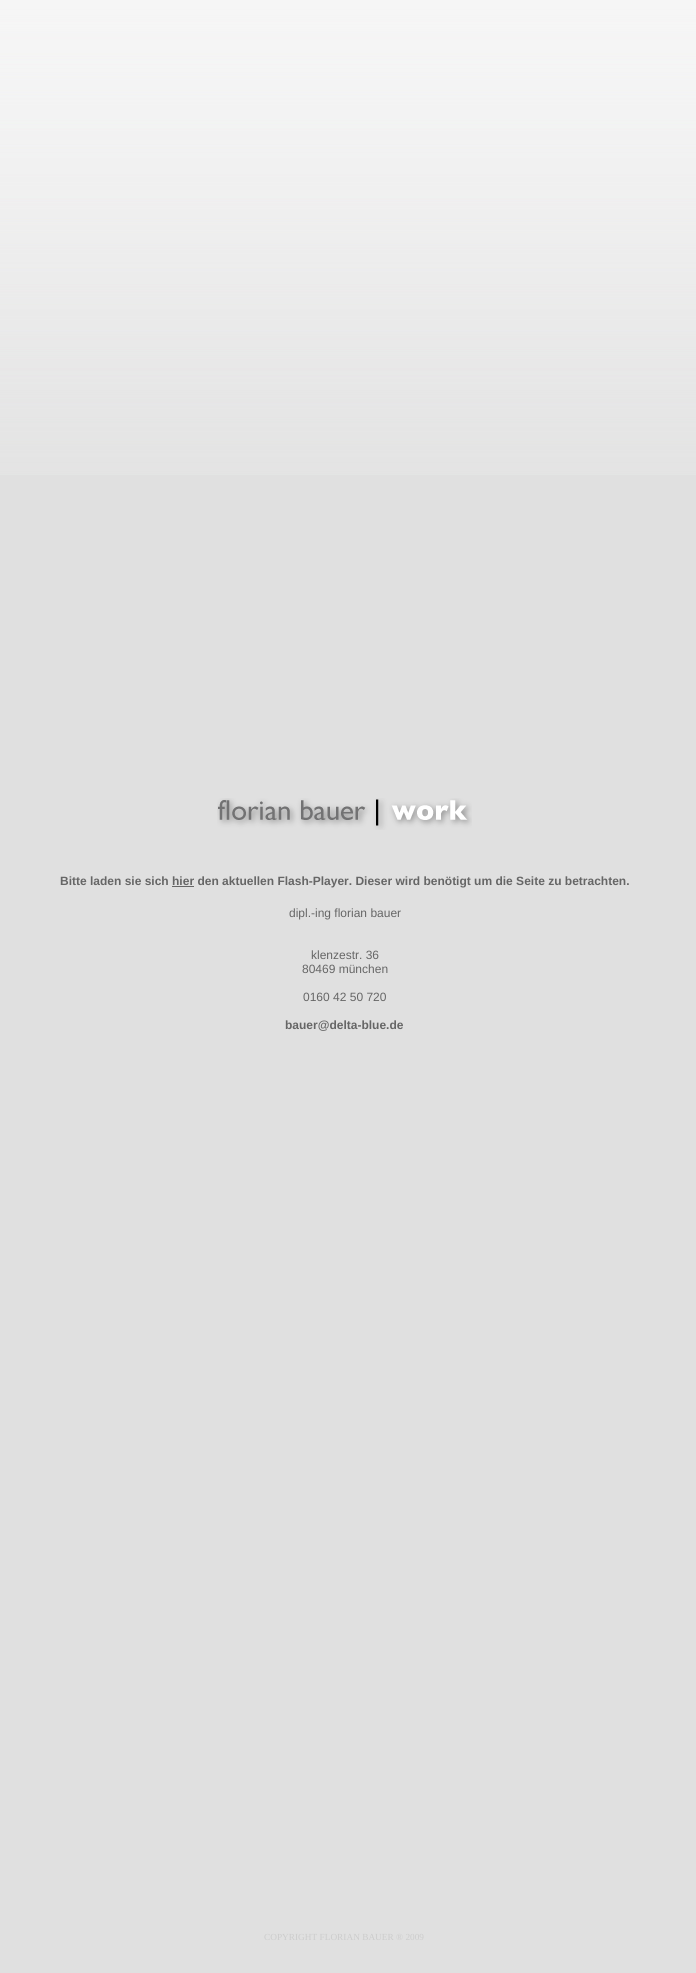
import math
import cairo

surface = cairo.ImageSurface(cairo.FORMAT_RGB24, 696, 1973)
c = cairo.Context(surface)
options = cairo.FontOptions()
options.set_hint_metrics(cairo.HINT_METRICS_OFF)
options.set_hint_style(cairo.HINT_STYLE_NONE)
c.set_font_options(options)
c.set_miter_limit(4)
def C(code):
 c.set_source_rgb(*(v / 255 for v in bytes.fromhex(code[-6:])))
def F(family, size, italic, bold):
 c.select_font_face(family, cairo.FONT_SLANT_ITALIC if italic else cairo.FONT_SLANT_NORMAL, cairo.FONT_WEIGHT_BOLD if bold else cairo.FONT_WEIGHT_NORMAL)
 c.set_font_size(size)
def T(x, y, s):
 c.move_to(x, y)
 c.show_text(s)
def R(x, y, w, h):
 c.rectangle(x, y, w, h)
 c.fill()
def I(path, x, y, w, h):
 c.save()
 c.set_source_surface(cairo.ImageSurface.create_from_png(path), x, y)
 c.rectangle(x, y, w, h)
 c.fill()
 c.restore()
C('e0e0e0')
c.paint()
I('1.png',0,0,696,475)
I('2.png',217,798,255,32)
F('Liberation Sans',12,0,1)
C('666666')
T(60,885,'Bitte laden sie sich hier den aktuellen Flash-Player. Dieser wird benötigt um die Seite zu betrachten.')
R(172,886,22,1)
F('Liberation Sans',12,0,0)
T(289,917,'dipl.-ing florian bauer')
T(311,959,'klenzestr. 36')
T(302,973,'80469 münchen')
T(303,1001,'0160 42 50 720')
F('Liberation Sans',12,0,1)
T(285,1029,'bauer@delta-blue.de')
F('Liberation Serif',9.3,0,0)
C('cccccc')
T(264,1940,'COPYRIGHT FLORIAN BAUER ® 2009')
surface.write_to_png('o.png')
